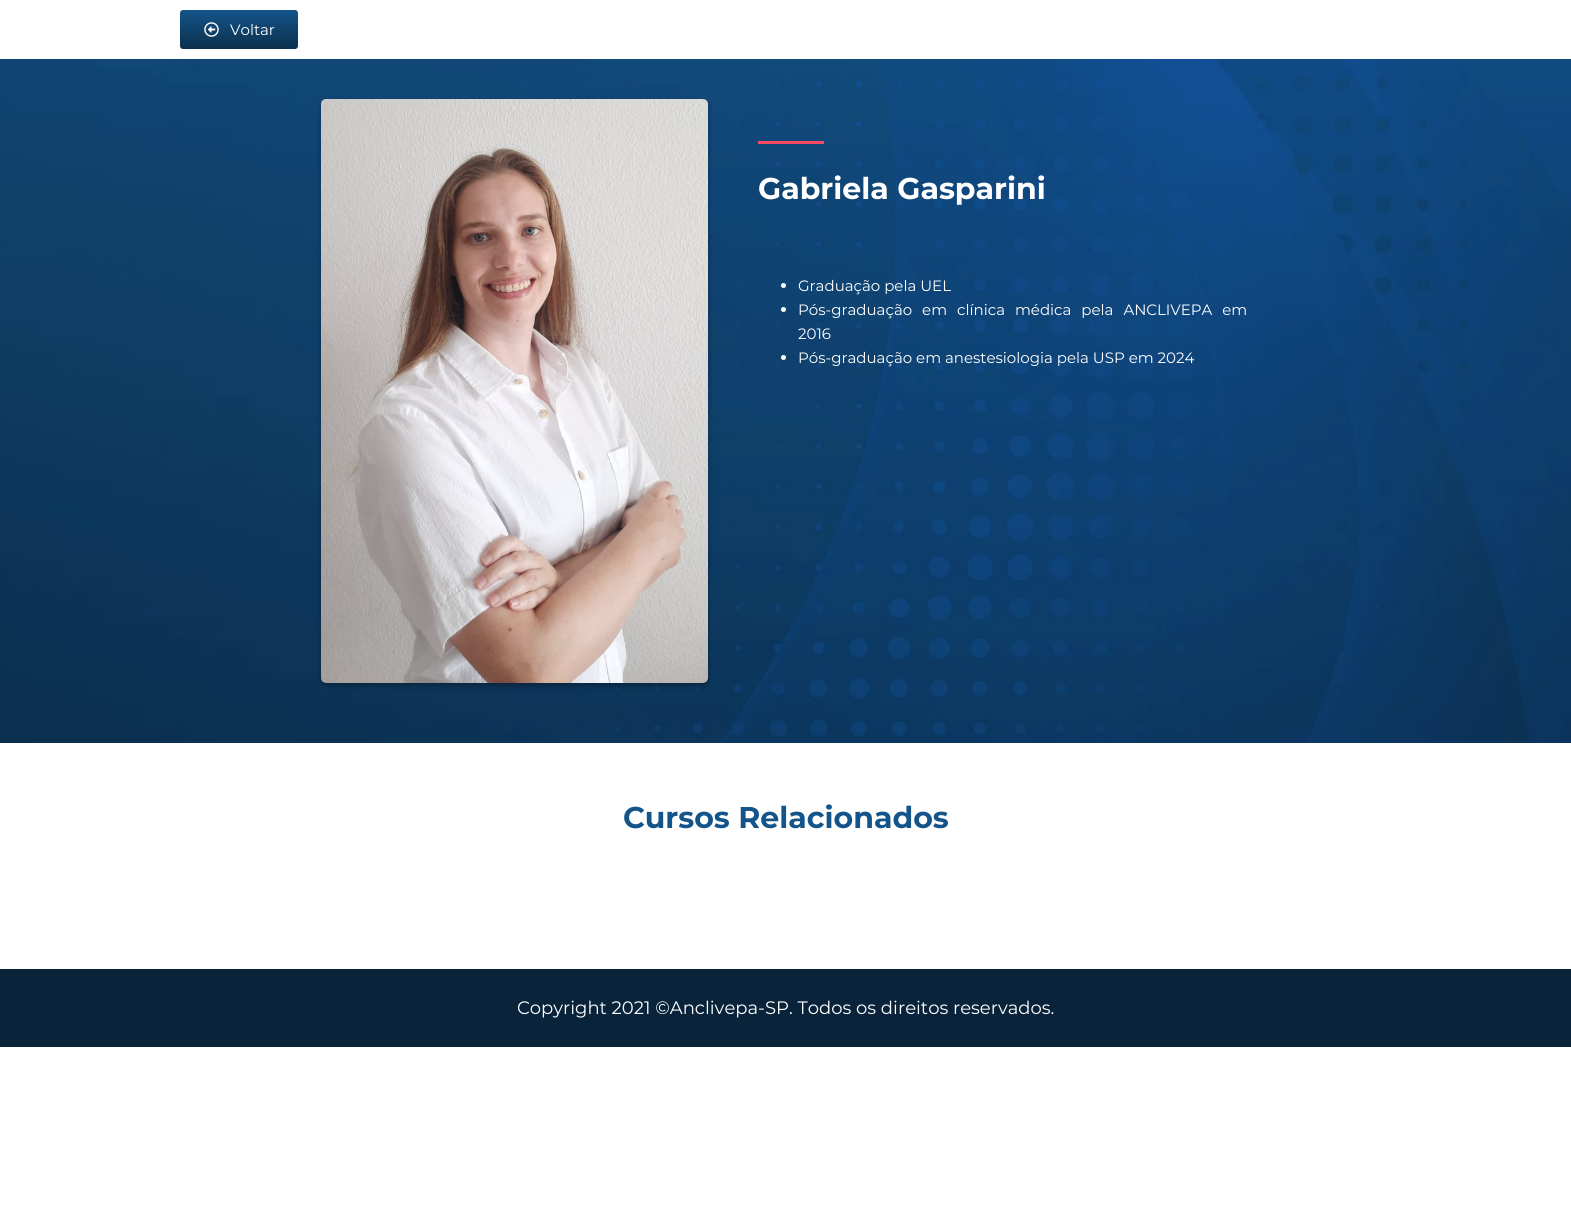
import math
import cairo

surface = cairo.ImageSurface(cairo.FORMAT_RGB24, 1571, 1214)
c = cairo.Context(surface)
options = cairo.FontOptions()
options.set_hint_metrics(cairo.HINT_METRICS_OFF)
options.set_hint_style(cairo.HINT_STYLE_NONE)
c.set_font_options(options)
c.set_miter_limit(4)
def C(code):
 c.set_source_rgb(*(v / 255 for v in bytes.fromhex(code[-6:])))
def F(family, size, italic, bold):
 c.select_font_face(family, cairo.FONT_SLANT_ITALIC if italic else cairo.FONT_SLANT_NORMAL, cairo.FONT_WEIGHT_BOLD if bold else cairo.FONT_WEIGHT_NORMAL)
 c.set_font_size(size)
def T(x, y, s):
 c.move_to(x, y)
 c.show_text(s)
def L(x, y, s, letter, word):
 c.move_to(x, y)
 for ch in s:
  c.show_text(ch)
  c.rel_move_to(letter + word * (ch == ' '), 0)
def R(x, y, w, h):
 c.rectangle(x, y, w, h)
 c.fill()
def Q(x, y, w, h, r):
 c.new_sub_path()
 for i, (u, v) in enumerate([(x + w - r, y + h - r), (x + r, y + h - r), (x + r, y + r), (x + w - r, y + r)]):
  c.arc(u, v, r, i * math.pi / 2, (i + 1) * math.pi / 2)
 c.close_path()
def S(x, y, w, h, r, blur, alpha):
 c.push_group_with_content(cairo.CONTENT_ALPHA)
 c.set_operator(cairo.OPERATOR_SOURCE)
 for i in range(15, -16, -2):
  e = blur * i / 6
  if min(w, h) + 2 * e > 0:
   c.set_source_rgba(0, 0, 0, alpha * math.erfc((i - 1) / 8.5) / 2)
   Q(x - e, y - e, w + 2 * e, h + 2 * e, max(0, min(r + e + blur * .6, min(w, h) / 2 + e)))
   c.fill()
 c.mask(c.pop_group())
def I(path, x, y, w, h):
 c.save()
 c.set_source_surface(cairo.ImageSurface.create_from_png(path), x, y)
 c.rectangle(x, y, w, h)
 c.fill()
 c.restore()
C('ffffff')
c.paint()
gradient = cairo.LinearGradient(239,10,239,49)
gradient.add_color_stop_rgba(0,0.075,0.329,0.541,1)
gradient.add_color_stop_rgba(1,0.047,0.188,0.298,1)
c.set_source(gradient)
Q(180,10,118,39,3)
c.fill()
I('1.png',204,22,15,15)
F('Montserrat',15,0,0)
C('ffffff')
T(230,35,'Voltar')
I('2.png',0,59,1571,684)
C('000000')
S(321,102,387,584,5,3,.32)
I('3.png',321,99,387,584)
C('fb4a62')
R(758,141,66,3)
F('Montserrat',30,0,1)
C('ffffff')
T(758,199,'Gabriela Gasparini')
c.new_path()
c.arc(783.5,285.5,2.5,0,2 * math.pi)
c.fill()
F('Montserrat',15,0,0)
T(798,291,'Graduação pela UEL')
c.new_path()
c.arc(783.5,309.5,2.5,0,2 * math.pi)
c.fill()
L(798,315,'Pós-graduação em clínica médica pela ANCLIVEPA em',0,6)
T(798,339,'2016')
c.new_path()
c.arc(783.5,357.5,2.5,0,2 * math.pi)
c.fill()
T(798,363,'Pós-graduação em anestesiologia pela USP em 2024')
F('Montserrat',30,0,1)
C('13548a')
T(623,828,'Cursos Relacionados')
C('08233a')
R(0,969,1571,78)
F('Montserrat',18,0,0)
C('ffffff')
T(517,1014,'Copyright 2021 ©Anclivepa-SP. Todos os direitos reservados.')
surface.write_to_png('o.png')
